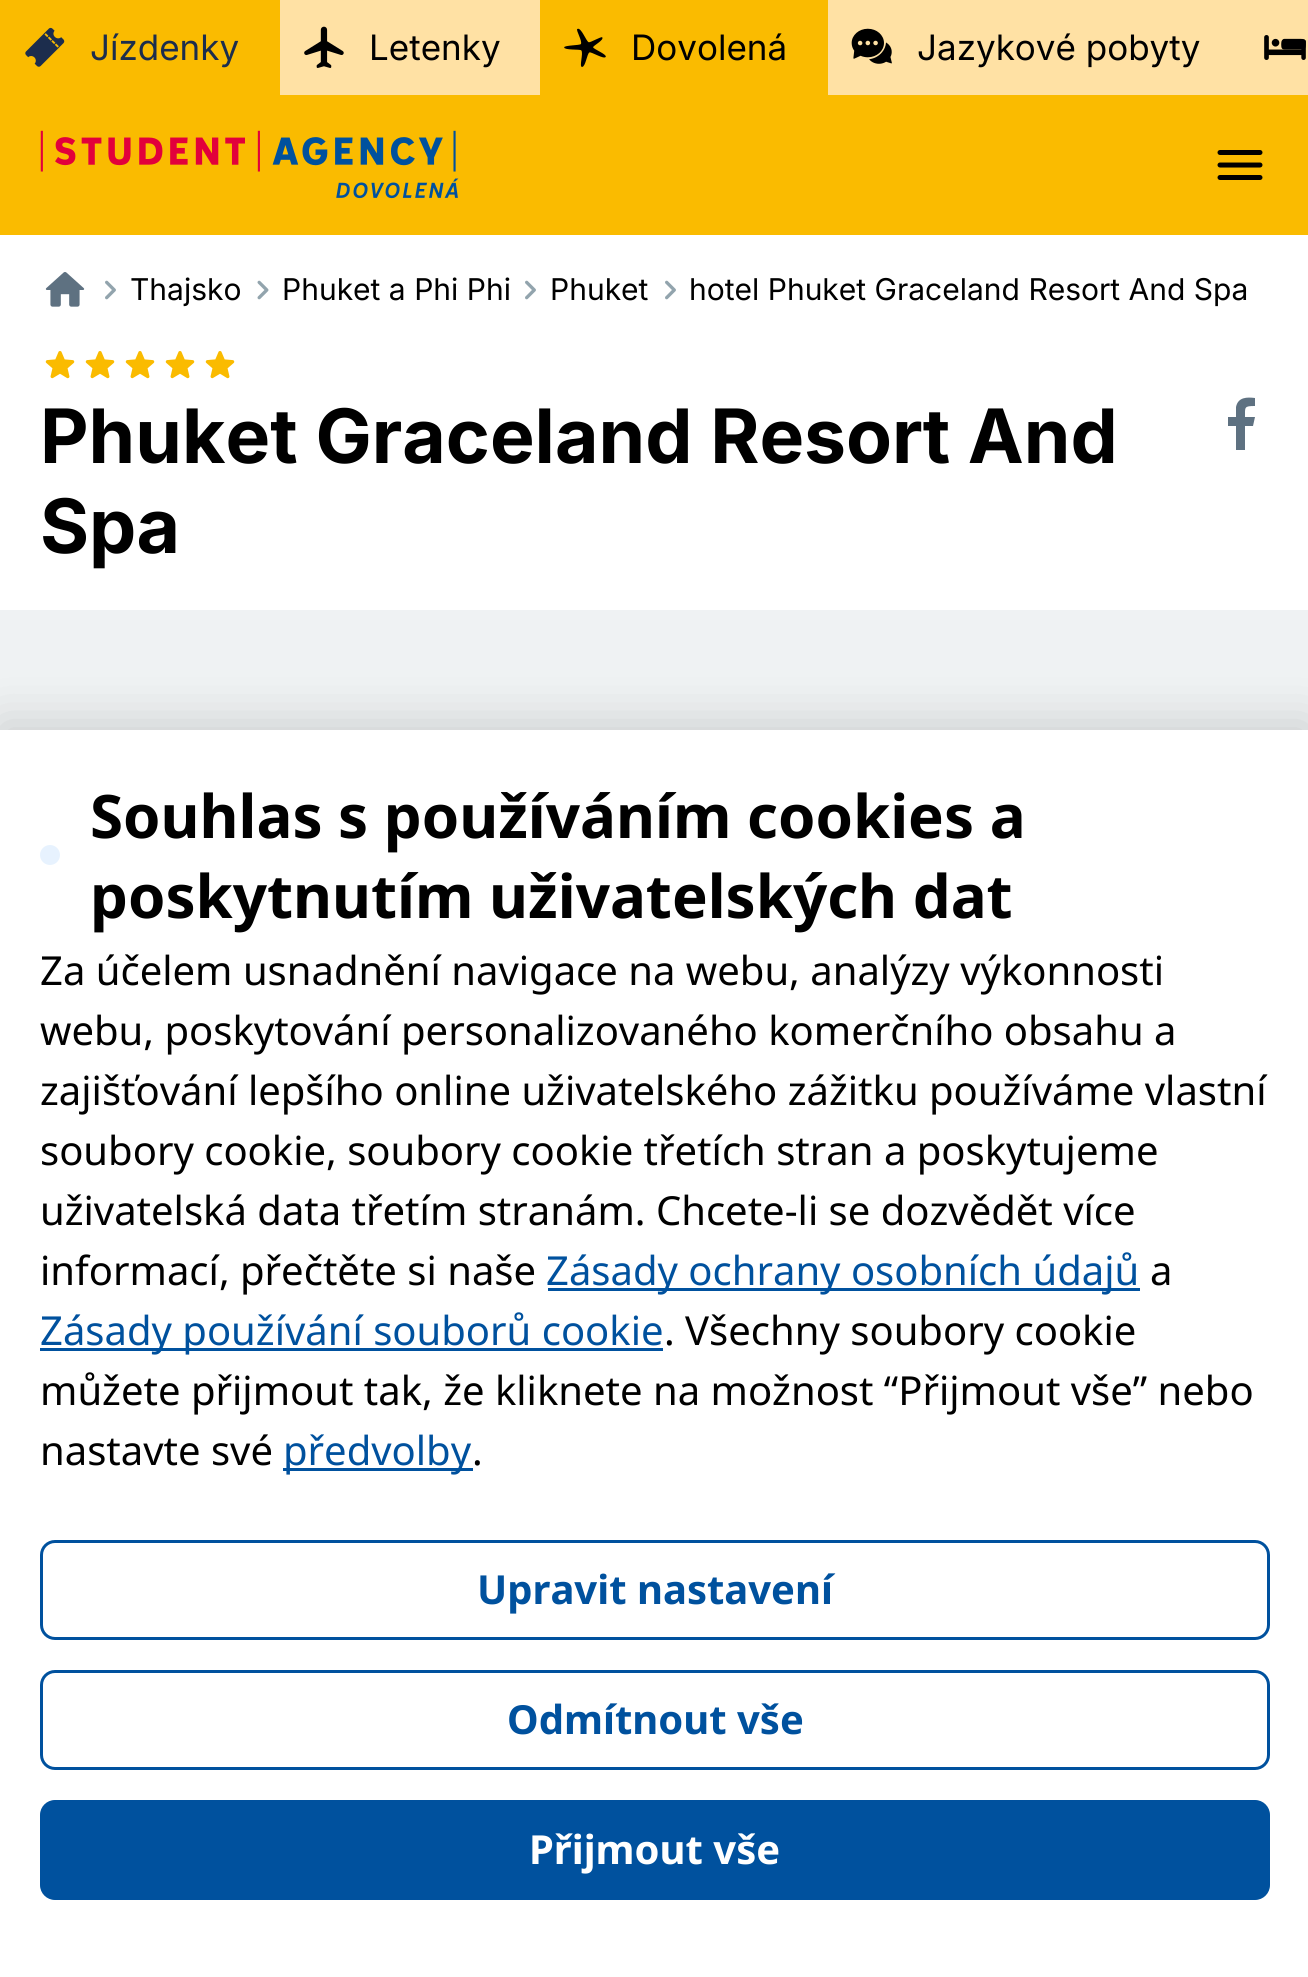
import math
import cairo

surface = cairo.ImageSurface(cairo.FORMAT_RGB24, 1308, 1977)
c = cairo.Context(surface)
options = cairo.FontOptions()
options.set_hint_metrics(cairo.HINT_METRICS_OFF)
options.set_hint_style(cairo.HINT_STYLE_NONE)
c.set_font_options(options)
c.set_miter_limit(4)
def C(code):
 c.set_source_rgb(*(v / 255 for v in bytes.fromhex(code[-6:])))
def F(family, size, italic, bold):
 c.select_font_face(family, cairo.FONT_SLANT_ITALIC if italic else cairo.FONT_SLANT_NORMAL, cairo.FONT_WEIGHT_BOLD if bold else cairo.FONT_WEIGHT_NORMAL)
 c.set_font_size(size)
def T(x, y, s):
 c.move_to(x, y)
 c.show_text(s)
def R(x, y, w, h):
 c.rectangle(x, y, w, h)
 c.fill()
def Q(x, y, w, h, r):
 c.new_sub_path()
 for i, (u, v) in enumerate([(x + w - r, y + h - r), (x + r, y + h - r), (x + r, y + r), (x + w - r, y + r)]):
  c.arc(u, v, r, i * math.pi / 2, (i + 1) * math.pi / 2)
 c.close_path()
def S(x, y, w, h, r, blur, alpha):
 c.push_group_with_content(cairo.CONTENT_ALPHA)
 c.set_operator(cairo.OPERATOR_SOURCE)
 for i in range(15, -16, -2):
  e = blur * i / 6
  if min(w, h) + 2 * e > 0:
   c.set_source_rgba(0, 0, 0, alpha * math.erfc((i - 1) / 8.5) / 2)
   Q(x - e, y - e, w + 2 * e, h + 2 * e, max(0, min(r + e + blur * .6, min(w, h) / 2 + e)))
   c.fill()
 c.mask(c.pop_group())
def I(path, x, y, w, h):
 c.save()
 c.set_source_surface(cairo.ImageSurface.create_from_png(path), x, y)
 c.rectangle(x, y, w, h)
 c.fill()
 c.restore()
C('ffffff')
c.paint()
C('ffe1a4')
R(280,0,1028,95)
C('fabb00')
R(0,0,280,95)
I('1.png',25,27,40,40)
F('Inter',35,0,0)
C('1c2d4d')
T(90,60,'Jízdenky')
I('2.png',304,26,40,42)
C('000000')
T(369,60,'Letenky')
C('fabb00')
R(540,0,288,95)
I('3.png',564,28,42,39)
C('000000')
T(631,60,'Dovolená')
I('4.png',851,28,41,36)
T(917,60,'Jazykové pobyty')
I('5.png',1264,35,42,25)
C('fabb00')
R(0,95,1308,140)
I('6.png',40,130,419,69)
I('7.png',1217,150,46,30)
I('8.png',45,272,40,35)
I('9.png',105,280,11,20)
F('Inter',30,0,0)
C('000000')
T(130,300,'Thajsko')
I('10.png',257,280,12,20)
T(282,300,'Phuket a Phi Phi')
I('9.png',525,280,11,20)
T(550,300,'Phuket')
I('9.png',665,280,11,20)
T(689,300,'hotel Phuket Graceland Resort And Spa')
I('11.png',45,351,30,28)
I('11.png',85,351,30,28)
I('11.png',125,351,30,28)
I('11.png',165,351,30,28)
I('11.png',205,351,30,28)
F('Inter',75,0,1)
T(40,463,'Phuket Graceland Resort And')
T(40,553,'Spa')
C('5e7181')
c.new_path()
c.move_to(1245,450)
c.line_to(1245,426)
c.line_to(1253,426)
c.line_to(1255,417)
c.line_to(1245,417)
c.curve_to(1245,407,1244,406,1255,406)
c.line_to(1255,398)
c.curve_to(1247,397,1238,397,1236,407)
c.line_to(1236,417)
c.line_to(1228,417)
c.line_to(1228,426)
c.line_to(1236,426)
c.line_to(1236,450)
c.close_path()
c.fill()
C('eff2f3')
R(0,610,1308,120)
C('000000')
S(0,723,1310,1250,0,25,.15)
C('ffffff')
R(0,730,1308,1247)
F('Noto Sans',60,0,1)
C('000000')
T(90,838,'Souhlas s používáním cookies a')
C('e7f2fe')
c.new_path()
c.arc(50,855,10,0,2 * math.pi)
c.fill()
C('000000')
T(90,918,'poskytnutím uživatelských dat')
F('Noto Sans',40,0,0)
T(40,985,'Za účelem usnadnění navigace na webu, analýzy výkonnosti')
T(40,1045,'webu, poskytování personalizovaného komerčního obsahu a')
T(40,1105,'zajišťování lepšího online uživatelského zážitku používáme vlastní')
T(40,1165,'soubory cookie, soubory cookie třetích stran a poskytujeme')
T(40,1225,'uživatelská data třetím stranám. Chcete-li se dozvědět více')
T(40,1285,'informací, přečtěte si naše')
C('00519e')
R(548,1288,592,3)
T(546,1285,'Zásady ochrany osobních údajů')
C('000000')
T(1150,1285,'a')
C('00519e')
R(40,1348,623,3)
T(40,1345,'Zásady používání souborů cookie')
C('000000')
T(664,1345,'. Všechny soubory cookie')
T(40,1405,'můžete přijmout tak, že kliknete na možnost “Přijmout vše” nebo')
T(40,1465,'nastavte své')
C('00519e')
R(283,1468,190,3)
T(283,1465,'předvolby')
C('000000')
T(472,1465,'.')
Q(41.5,1541.5,1227,97,13.5)
C('00519e')
c.set_line_width(3)
c.stroke()
F('Noto Sans',40,0,1)
T(477,1604,'Upravit nastavení')
Q(41.5,1671.5,1227,97,13.5)
c.stroke()
T(507,1734,'Odmítnout vše')
Q(40,1800,1230,100,15)
c.fill()
C('ffffff')
T(529,1864,'Přijmout vše')
surface.write_to_png('o.png')
